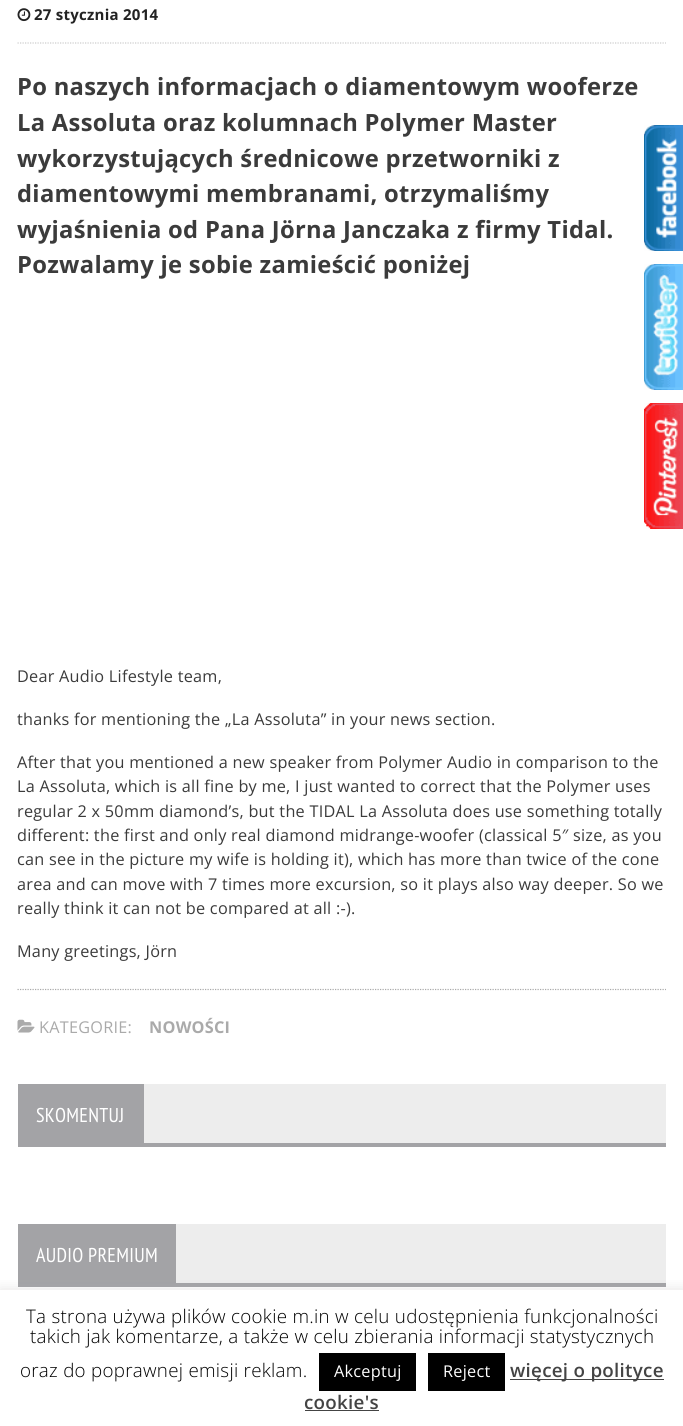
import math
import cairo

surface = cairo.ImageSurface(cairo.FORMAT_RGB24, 683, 1426)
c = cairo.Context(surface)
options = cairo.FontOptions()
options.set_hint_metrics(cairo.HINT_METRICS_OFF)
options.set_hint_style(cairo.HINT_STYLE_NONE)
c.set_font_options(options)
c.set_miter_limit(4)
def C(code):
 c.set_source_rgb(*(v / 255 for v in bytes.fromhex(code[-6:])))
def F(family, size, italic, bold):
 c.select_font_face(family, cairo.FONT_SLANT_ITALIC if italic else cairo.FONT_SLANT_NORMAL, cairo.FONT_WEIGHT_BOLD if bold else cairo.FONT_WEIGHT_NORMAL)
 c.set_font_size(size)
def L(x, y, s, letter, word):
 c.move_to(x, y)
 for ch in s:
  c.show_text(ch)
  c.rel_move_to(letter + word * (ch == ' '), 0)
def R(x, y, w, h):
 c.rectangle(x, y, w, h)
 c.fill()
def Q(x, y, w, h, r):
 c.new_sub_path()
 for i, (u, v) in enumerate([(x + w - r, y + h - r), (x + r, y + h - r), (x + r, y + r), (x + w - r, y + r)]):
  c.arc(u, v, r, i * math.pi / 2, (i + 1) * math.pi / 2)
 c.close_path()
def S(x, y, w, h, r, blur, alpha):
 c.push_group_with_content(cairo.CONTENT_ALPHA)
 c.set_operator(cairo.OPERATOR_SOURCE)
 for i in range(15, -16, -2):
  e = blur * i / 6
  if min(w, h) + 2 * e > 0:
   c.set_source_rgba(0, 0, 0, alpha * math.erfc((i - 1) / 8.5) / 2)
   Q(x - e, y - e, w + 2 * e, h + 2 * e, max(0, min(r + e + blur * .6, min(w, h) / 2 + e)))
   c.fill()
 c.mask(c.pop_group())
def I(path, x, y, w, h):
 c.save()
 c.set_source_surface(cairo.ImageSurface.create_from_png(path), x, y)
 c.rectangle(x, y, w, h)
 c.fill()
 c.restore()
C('ffffff')
c.paint()
c.new_path()
c.move_to(17.5,43)
c.line_to(666,43)
C('cccccc')
c.set_line_width(1.2)
c.set_dash([1.25,1.25])
c.stroke()
I('1.png',17,8,14,14)
F('Open Sans',15,0,1)
C('232323')
L(34,20,'27 stycznia 2014',.25,0)
F('Open Sans',23.75,0,1)
C('3b3b3b')
L(17,95,'Po naszych informacjach o diamentowym wooferze',.3,0)
L(17,131,'La Assoluta oraz kolumnach Polymer Master',.3,0)
L(17,167,'wykorzystujących średnicowe przetworniki z',.3,0)
L(17,202,'diamentowymi membranami, otrzymaliśmy',.3,0)
L(17,238,'wyjaśnienia od Pana Jörna Janczaka z firmy Tidal.',.3,0)
L(17,273,'Pozwalamy je sobie zamieścić poniżej',.3,0)
F('Open Sans',16.25,0,0)
L(17,682,'Dear Audio Lifestyle team,',.25,0)
L(17,725,'thanks for mentioning the „La Assoluta” in your news section.',.25,0)
L(17,768,'After that you mentioned a new speaker from Polymer Audio in comparison to the',.25,0)
L(17,792,'La Assoluta, which is all fine by me, I just wanted to correct that the Polymer uses',.25,0)
L(17,817,'regular 2 x 50mm diamond’s, but the TIDAL La Assoluta does use something totally',.25,0)
L(17,841,'different: the first and only real diamond midrange-woofer (classical 5″ size, as you',.25,0)
L(17,865,'can see in the picture my wife is holding it), which has more than twice of the cone',.25,0)
L(17,890,'area and can move with 7 times more excursion, so it plays also way deeper. So we',.25,0)
L(17,914,'really think it can not be compared at all :-).',.25,0)
L(17,957,'Many greetings, Jörn',.25,0)
c.new_path()
c.move_to(17.5,989.5)
c.line_to(666,989.5)
C('aaaaaa')
c.stroke()
I('2.png',17,1019,18,14)
L(39,1033,'KATEGORIE:',.25,0)
F('Open Sans',16.25,0,1)
L(149,1033,'NOWOŚCI',.25,0)
C('ededed')
R(144,1084,522,59)
C('a3a3a6')
R(18,1084,126,59)
F('PT Sans Narrow',20,0,0)
C('ffffff')
L(36,1122,'SKOMENTUJ',.3,0)
C('a3a3a6')
R(18,1143,648,4)
C('ededed')
R(176,1224,490,59)
C('a3a3a6')
R(18,1224,158,59)
C('ffffff')
L(36,1262,'AUDIO PREMIUM',.3,0)
C('a3a3a6')
R(18,1283,648,4)
I('3.png',644,125,39,126)
I('4.png',644,264,39,126)
I('5.png',644,403,39,126)
c.save()
c.rectangle(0,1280,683,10)
c.clip()
C('acabab')
S(0,1289,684,136,0,6,.3)
c.restore()
F('Open Sans Light',18.75,0,0)
C('000000')
L(26,1323,'Ta strona używa plików cookie m.in w celu udostępnienia funkcjonalności',.28,0)
L(30,1343,'takich jak komentarze, a także w celu zbierania informacji statystycznych',.28,0)
L(20,1377,'oraz do poprawnej emisji reklam.',.28,0)
R(319,1353,97,38)
F('Open Sans',16.25,0,0)
C('ffffff')
L(334,1377,'Akceptuj',.25,0)
C('000000')
R(428,1353,77,38)
C('ffffff')
L(443,1377,'Reject',.25,0)
C('444444')
R(510,1379,154,1)
F('Open Sans SemiBold',18.75,0,0)
L(510,1377,'więcej o polityce',.28,0)
L(304,1409,'cookie\'s',.28,0)
R(305,1410,74,1)
surface.write_to_png('o.png')
